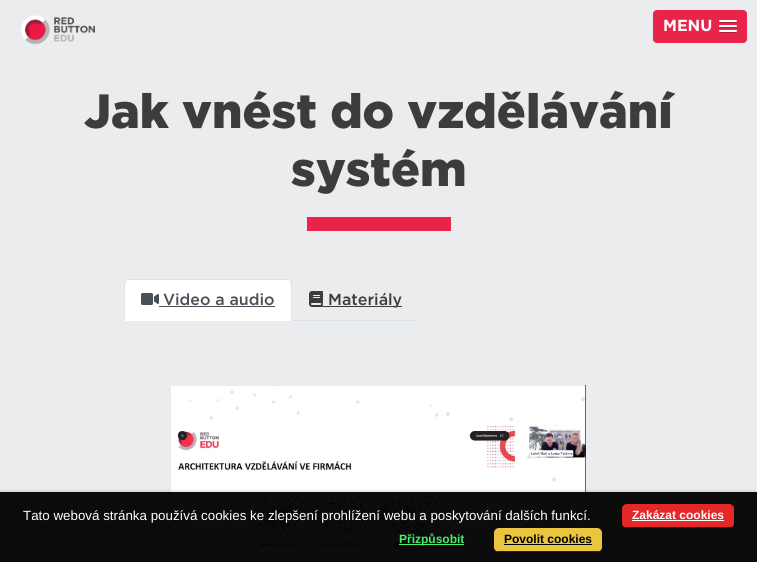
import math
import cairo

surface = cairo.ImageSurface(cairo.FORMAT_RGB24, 757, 562)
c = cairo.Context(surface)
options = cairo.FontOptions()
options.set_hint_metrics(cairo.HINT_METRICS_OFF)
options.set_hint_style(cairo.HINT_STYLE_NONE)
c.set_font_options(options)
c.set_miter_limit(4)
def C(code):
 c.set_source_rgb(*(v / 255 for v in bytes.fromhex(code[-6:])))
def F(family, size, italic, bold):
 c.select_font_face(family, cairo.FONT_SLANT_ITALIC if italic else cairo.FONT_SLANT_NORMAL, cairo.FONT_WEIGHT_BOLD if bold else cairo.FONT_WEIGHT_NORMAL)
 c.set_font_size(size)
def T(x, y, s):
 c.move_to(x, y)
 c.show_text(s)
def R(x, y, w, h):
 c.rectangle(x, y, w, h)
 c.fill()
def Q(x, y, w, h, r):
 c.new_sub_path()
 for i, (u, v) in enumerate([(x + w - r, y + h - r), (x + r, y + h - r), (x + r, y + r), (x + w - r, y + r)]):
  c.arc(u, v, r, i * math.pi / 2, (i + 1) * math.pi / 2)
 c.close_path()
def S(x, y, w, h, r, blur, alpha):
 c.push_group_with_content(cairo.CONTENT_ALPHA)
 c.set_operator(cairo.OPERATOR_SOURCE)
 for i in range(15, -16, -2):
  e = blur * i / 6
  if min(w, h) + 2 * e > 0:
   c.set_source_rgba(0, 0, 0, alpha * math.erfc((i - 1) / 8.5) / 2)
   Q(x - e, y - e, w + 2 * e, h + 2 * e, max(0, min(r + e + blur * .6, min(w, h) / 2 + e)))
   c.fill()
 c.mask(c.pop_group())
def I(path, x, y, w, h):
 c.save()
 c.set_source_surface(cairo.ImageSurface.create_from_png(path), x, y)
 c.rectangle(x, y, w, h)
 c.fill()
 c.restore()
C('ebeced')
c.paint()
I('1.png',21,15,74,30)
C('e9244a')
Q(653,10,94,33,4)
c.fill()
F('Gotham',16,0,1)
C('ffffff')
T(663,31,'MENU')
C('af1b38')
c.new_path()
c.move_to(719,21.5)
c.curve_to(718,23.5,722.5,23,722.5,23)
c.line_to(733.5,23)
c.curve_to(733.5,23,738,23.5,737,21.5)
c.curve_to(736,22.5,729.5,22,728,22)
c.curve_to(726.5,22,720,22.5,719,21.5)
c.close_path()
c.fill()
C('ffffff')
Q(719,20,18,2,1)
c.fill()
C('af1b38')
c.new_path()
c.move_to(719,26.5)
c.curve_to(718,28.5,722.5,28,722.5,28)
c.line_to(733.5,28)
c.curve_to(733.5,28,738,28.5,737,26.5)
c.curve_to(736,27.5,729.5,27,728,27)
c.curve_to(726.5,27,720,27.5,719,26.5)
c.close_path()
c.fill()
C('ffffff')
Q(719,25,18,2,1)
c.fill()
C('af1b38')
c.new_path()
c.move_to(719,31.5)
c.curve_to(718,33.5,722.5,33,722.5,33)
c.line_to(733.5,33)
c.curve_to(733.5,33,738,33.5,737,31.5)
c.curve_to(736,32.5,729.5,32,728,32)
c.curve_to(726.5,32,720,32.5,719,31.5)
c.close_path()
c.fill()
C('ffffff')
Q(719,30,18,2,1)
c.fill()
F('Gotham Black',48,0,0)
C('3c3c3d')
T(84,128,'Jak vnést do vzdělávání')
T(291,186,'systém')
C('e9244a')
R(307,217,144,14)
C('dee2e6')
R(292,320,127,1)
C('ffffff')
c.new_path()
c.move_to(128,279)
c.line_to(288,279)
c.curve_to(290,279,292,281,292,283)
c.line_to(292,321)
c.line_to(124,321)
c.line_to(124,283)
c.curve_to(124,281,126,279,128,279)
c.close_path()
c.fill()
C('dee2e6')
c.new_path()
c.move_to(128,279)
c.line_to(125,280)
c.line_to(126,281)
c.line_to(128,280)
c.line_to(288,280)
c.line_to(290,281)
c.line_to(291,280)
c.line_to(288,279)
c.close_path()
c.fill()
c.new_path()
c.move_to(292,321)
c.line_to(292,283)
c.curve_to(292,282,292,281,291,280)
c.line_to(290,281)
c.curve_to(292,283,291,315,291,320)
c.close_path()
c.fill()
C('ffffff')
c.new_path()
c.move_to(292,321)
c.line_to(291,320)
c.line_to(125,320)
c.line_to(124,321)
c.close_path()
c.fill()
C('dee2e6')
c.new_path()
c.move_to(124,321)
c.line_to(125,320)
c.curve_to(125,315,124,283,126,281)
c.line_to(125,280)
c.line_to(124,283)
c.close_path()
c.fill()
I('2.png',141,293,18,12)
F('Gotham Medium',16,0,0)
C('495057')
T(163,305,'Video a audio')
R(159,306,116,1)
I('3.png',309,291,14,16)
C('3c3c3d')
R(323,306,79,1)
T(328,305,'Materiály')
I('4.png',171,385,415,177)
c.save()
c.rectangle(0,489,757,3)
c.clip()
C('000000')
S(2,494,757,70,0,2.5,.6)
c.restore()
c.set_source_rgba(0,0,0,0.95)
R(0,492,757,70)
F('Liberation Sans',13.35,0,0)
C('ffffff')
T(23,520,'Tato webová stránka používá cookies ke zlepšení prohlížení webu a poskytování dalších funkcí.')
C('e42828')
Q(622,504,112,24,5)
c.fill()
C('222222')
R(625,527,107,1)
F('Liberation Sans',12,0,1)
C('ffffff')
T(632,519,'Zakázat cookies')
R(632,520,92,1)
C('4bec69')
R(399,544,65,1)
T(399,543,'Přizpůsobit')
C('eac53e')
Q(494,528,108,24,5)
c.fill()
C('222222')
R(497,551,103,1)
C('000000')
T(504,543,'Povolit cookies')
R(504,544,88,1)
surface.write_to_png('o.png')
